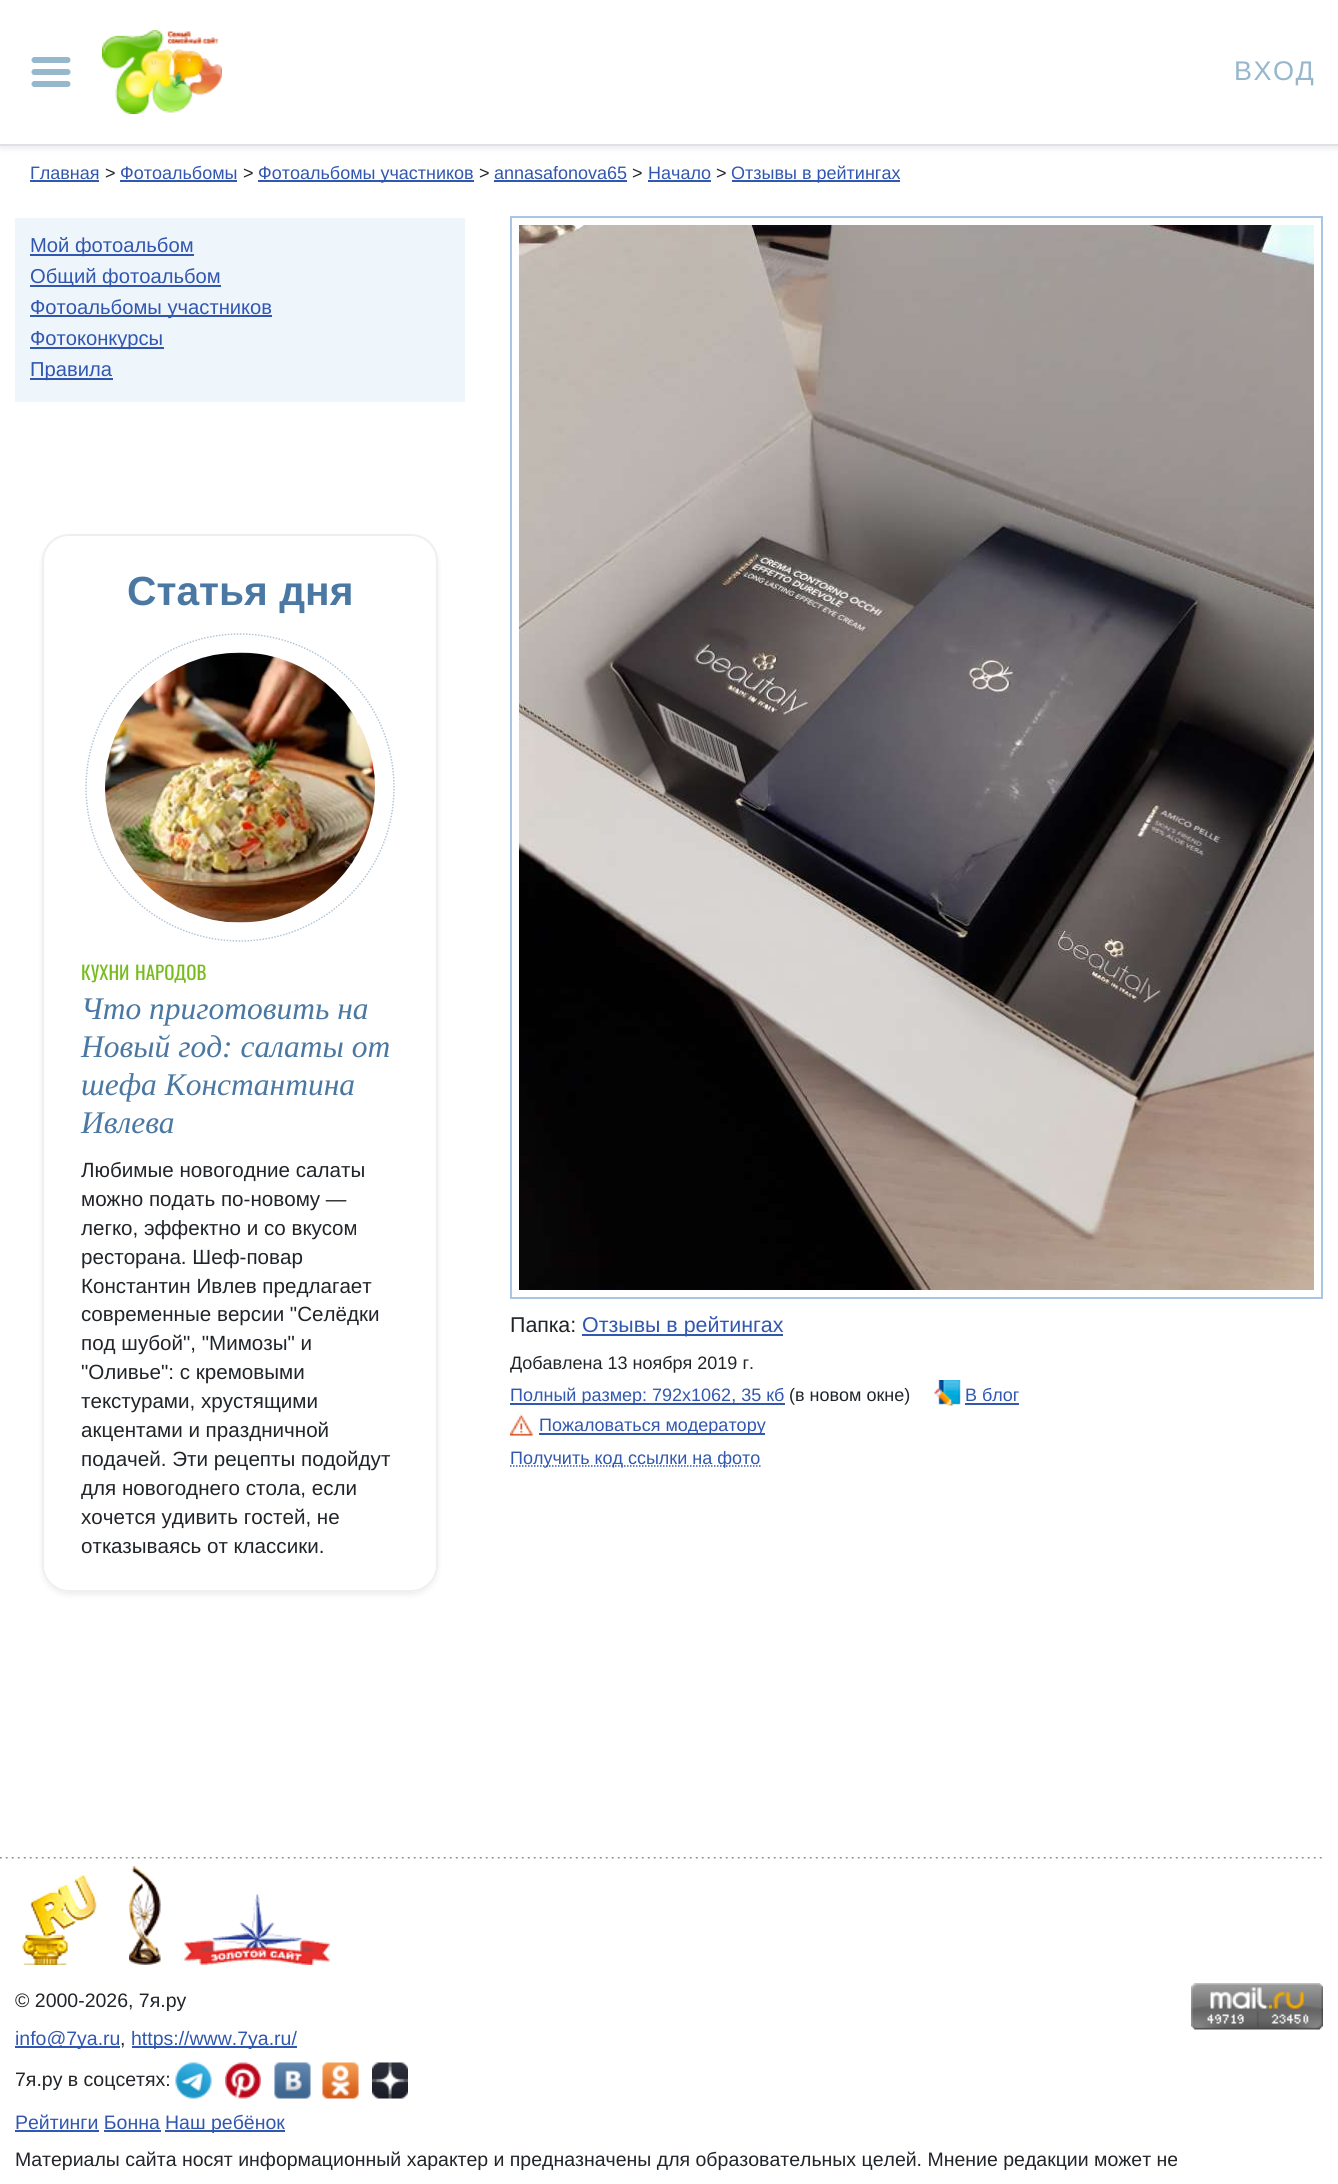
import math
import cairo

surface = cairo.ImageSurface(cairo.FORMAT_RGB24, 1338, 2184)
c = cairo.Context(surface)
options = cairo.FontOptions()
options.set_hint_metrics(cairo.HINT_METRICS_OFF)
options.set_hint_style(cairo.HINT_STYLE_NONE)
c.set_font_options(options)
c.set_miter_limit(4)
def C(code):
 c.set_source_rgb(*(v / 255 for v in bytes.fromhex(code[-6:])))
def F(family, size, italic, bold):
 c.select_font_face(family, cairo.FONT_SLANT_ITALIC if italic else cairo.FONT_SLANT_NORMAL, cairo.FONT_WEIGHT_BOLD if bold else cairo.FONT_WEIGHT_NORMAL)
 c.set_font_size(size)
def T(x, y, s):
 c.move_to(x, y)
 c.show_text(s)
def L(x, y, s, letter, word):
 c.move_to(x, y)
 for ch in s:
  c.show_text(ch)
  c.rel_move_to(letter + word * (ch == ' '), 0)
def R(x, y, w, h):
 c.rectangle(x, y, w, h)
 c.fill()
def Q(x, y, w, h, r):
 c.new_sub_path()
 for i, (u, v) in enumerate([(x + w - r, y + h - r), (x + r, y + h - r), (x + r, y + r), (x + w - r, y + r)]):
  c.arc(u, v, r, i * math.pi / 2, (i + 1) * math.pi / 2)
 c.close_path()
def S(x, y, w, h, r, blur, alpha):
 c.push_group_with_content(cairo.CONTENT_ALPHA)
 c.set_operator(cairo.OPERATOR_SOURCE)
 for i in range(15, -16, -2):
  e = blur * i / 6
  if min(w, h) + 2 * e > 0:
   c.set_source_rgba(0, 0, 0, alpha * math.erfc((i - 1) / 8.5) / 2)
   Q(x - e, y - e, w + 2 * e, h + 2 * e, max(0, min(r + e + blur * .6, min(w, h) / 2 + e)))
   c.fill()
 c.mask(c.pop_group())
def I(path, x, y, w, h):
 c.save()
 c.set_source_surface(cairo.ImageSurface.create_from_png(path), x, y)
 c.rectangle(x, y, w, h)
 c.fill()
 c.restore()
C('ffffff')
c.paint()
C('000000')
S(0,3,1338,146,0,3,.07)
C('ffffff')
R(0,0,1338,144)
C('dee2e6')
R(0,144,1338,2)
c.new_path()
c.move_to(34.5,60)
c.line_to(67.5,60)
c.move_to(34.5,72)
c.line_to(67.5,72)
c.move_to(34.5,84)
c.line_to(67.5,84)
C('96b7cc')
c.set_line_width(6)
c.set_line_cap(cairo.LINE_CAP_ROUND)
c.stroke()
I('1.png',102,30,120,84)
F('Liberation Sans',27,0,0)
L(1234,80,'ВХОД',1.5,0)
F('Liberation Sans',18,0,0)
C('3157b0')
T(30,179,'Главная')
R(30,180,69,2)
C('212529')
T(105,179,'>')
C('3157b0')
T(120,179,'Фотоальбомы')
R(120,180,117,2)
C('212529')
T(243,179,'>')
C('3157b0')
R(258,180,216,2)
T(258,179,'Фотоальбомы участников')
C('212529')
T(479,179,'>')
C('3157b0')
T(494,179,'annasafonova65')
R(494,180,133,2)
C('212529')
T(632,179,'>')
C('3157b0')
T(648,179,'Начало')
R(648,180,63,2)
C('212529')
T(716,179,'>')
C('3157b0')
R(732,180,168,2)
T(731,179,'Отзывы в рейтингах')
C('eef5fb')
R(15,218,450,184)
C('3157b0')
R(30,254,164,2)
F('Liberation Sans',20.2,0,0)
T(30,252,'Мой фотоальбом')
R(30,285,191,2)
T(30,283,'Общий фотоальбом')
R(30,315,242,2)
T(30,314,'Фотоальбомы участников')
R(30,347,134,2)
T(30,345,'Фотоконкурсы')
R(30,378,83,2)
T(30,376,'Правила')
c.save()
c.set_fill_rule(cairo.FILL_RULE_EVEN_ODD)
c.new_path()
c.move_to(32,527)
c.line_to(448,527)
c.line_to(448,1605)
c.line_to(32,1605)
c.close_path()
c.move_to(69,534)
c.line_to(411,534)
c.curve_to(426,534,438,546,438,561)
c.line_to(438,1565)
c.curve_to(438,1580,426,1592,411,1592)
c.line_to(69,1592)
c.curve_to(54,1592,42,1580,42,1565)
c.line_to(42,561)
c.curve_to(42,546,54,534,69,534)
c.close_path()
c.clip()
C('000000')
S(42,537,396,1058,27,3,.07)
c.restore()
Q(43,535,394,1056,26)
C('efefef')
c.set_line_width(2)
c.set_line_cap(cairo.LINE_CAP_BUTT)
c.stroke()
F('Liberation Sans',40.75,0,1)
C('4a78a3')
T(127,605,'Статья дня')
c.new_path()
c.move_to(240,634)
c.curve_to(325,634,394,702.5,394,787.5)
c.curve_to(394,872.5,325,941,240,941)
c.curve_to(155,941,86,872.5,86,787.5)
c.curve_to(86,702.5,155,634,240,634)
c.close_path()
C('b4c5d6')
c.set_line_width(1.5)
c.set_dash([1.5,1.5])
c.stroke()
I('2.png',105,652,270,271)
F('Oswald',19,0,0)
C('77bb1f')
T(81,980,'КУХНИ')
T(135,980,'НАРОДОВ')
F('Liberation Serif',31.5,1,0)
C('4a78a3')
T(81,1019,'Что приготовить на')
T(81,1057,'Новый год: салаты от')
T(81,1095,'шефа Константина')
T(81,1133,'Ивлева')
F('Liberation Sans',20.6,0,0)
C('212529')
T(81,1177,'Любимые новогодние салаты')
T(81,1206,'можно подать по-новому —')
T(81,1235,'легко, эффектно и со вкусом')
T(81,1264,'ресторана. Шеф-повар')
T(81,1293,'Константин Ивлев предлагает')
T(81,1321,'современные версии "Селёдки')
T(81,1350,'под шубой", "Мимозы" и')
T(81,1379,'"Оливье": с кремовыми')
T(81,1408,'текстурами, хрустящими')
T(81,1437,'акцентами и праздничной')
T(81,1466,'подачей. Эти рецепты подойдут')
T(81,1495,'для новогоднего стола, если')
T(81,1524,'хочется удивить гостей, не')
T(81,1553,'отказываясь от классики.')
c.rectangle(511,217,811,1081)
C('a9c7e4')
c.set_line_width(2)
c.set_dash([])
c.stroke()
I('3.png',519,225,795,1065)
F('Liberation Sans',21.4,0,0)
C('212529')
T(510,1332,'Папка:')
C('3157b0')
R(582,1334,201,2)
T(582,1332,'Отзывы в рейтингах')
F('Liberation Sans',18,0,0)
C('212529')
T(510,1369,'Добавлена 13 ноября 2019 г.')
C('3157b0')
R(510,1403,275,2)
T(510,1401,'Полный размер: 792х1062, 35 кб')
C('212529')
T(789,1401,'(в новом окне)')
I('4.png',934,1380,27,26)
C('3157b0')
T(965,1401,'В блог')
R(965,1403,54,2)
I('5.png',510,1414,24,22)
R(539,1433,226,2)
T(539,1431,'Пожаловаться модератору')
c.new_path()
c.move_to(510,1466)
c.line_to(760.5,1466)
c.set_line_width(1.5)
c.set_dash([1.5,1.5])
c.stroke()
T(510,1464,'Получить код ссылки на фото')
I('6.png',0,1857,1322,2)
I('7.png',22,1875,76,90)
I('8.png',129,1866,32,99)
I('9.png',184,1894,146,71)
F('Liberation Sans',19.5,0,0)
C('212529')
T(15,2007,'© 2000-2026, 7я.ру')
C('3157b0')
R(15,2046,105,2)
T(15,2045,'info@7ya.ru')
C('212529')
T(120,2045,',')
C('3157b0')
R(132,2046,165,2)
T(131,2045,'https://www.7ya.ru/')
C('212529')
T(15,2086,'7я.ру в соцсетях:')
I('10.png',175,2062,37,37)
I('11.png',225,2062,36,37)
I('12.png',274,2062,37,37)
I('13.png',322,2062,37,37)
I('14.png',372,2062,36,37)
C('3157b0')
T(15,2129,'Рейтинги Бонна')
R(15,2130,84,2)
R(165,2130,120,2)
T(165,2129,'Наш ребёнок')
R(104,2130,57,2)
C('212529')
T(15,2166,'Материалы сайта носят информационный характер и предназначены для образовательных целей. Мнение редакции может не')
I('15.png',1191,1983,132,47)
surface.write_to_png('o.png')
